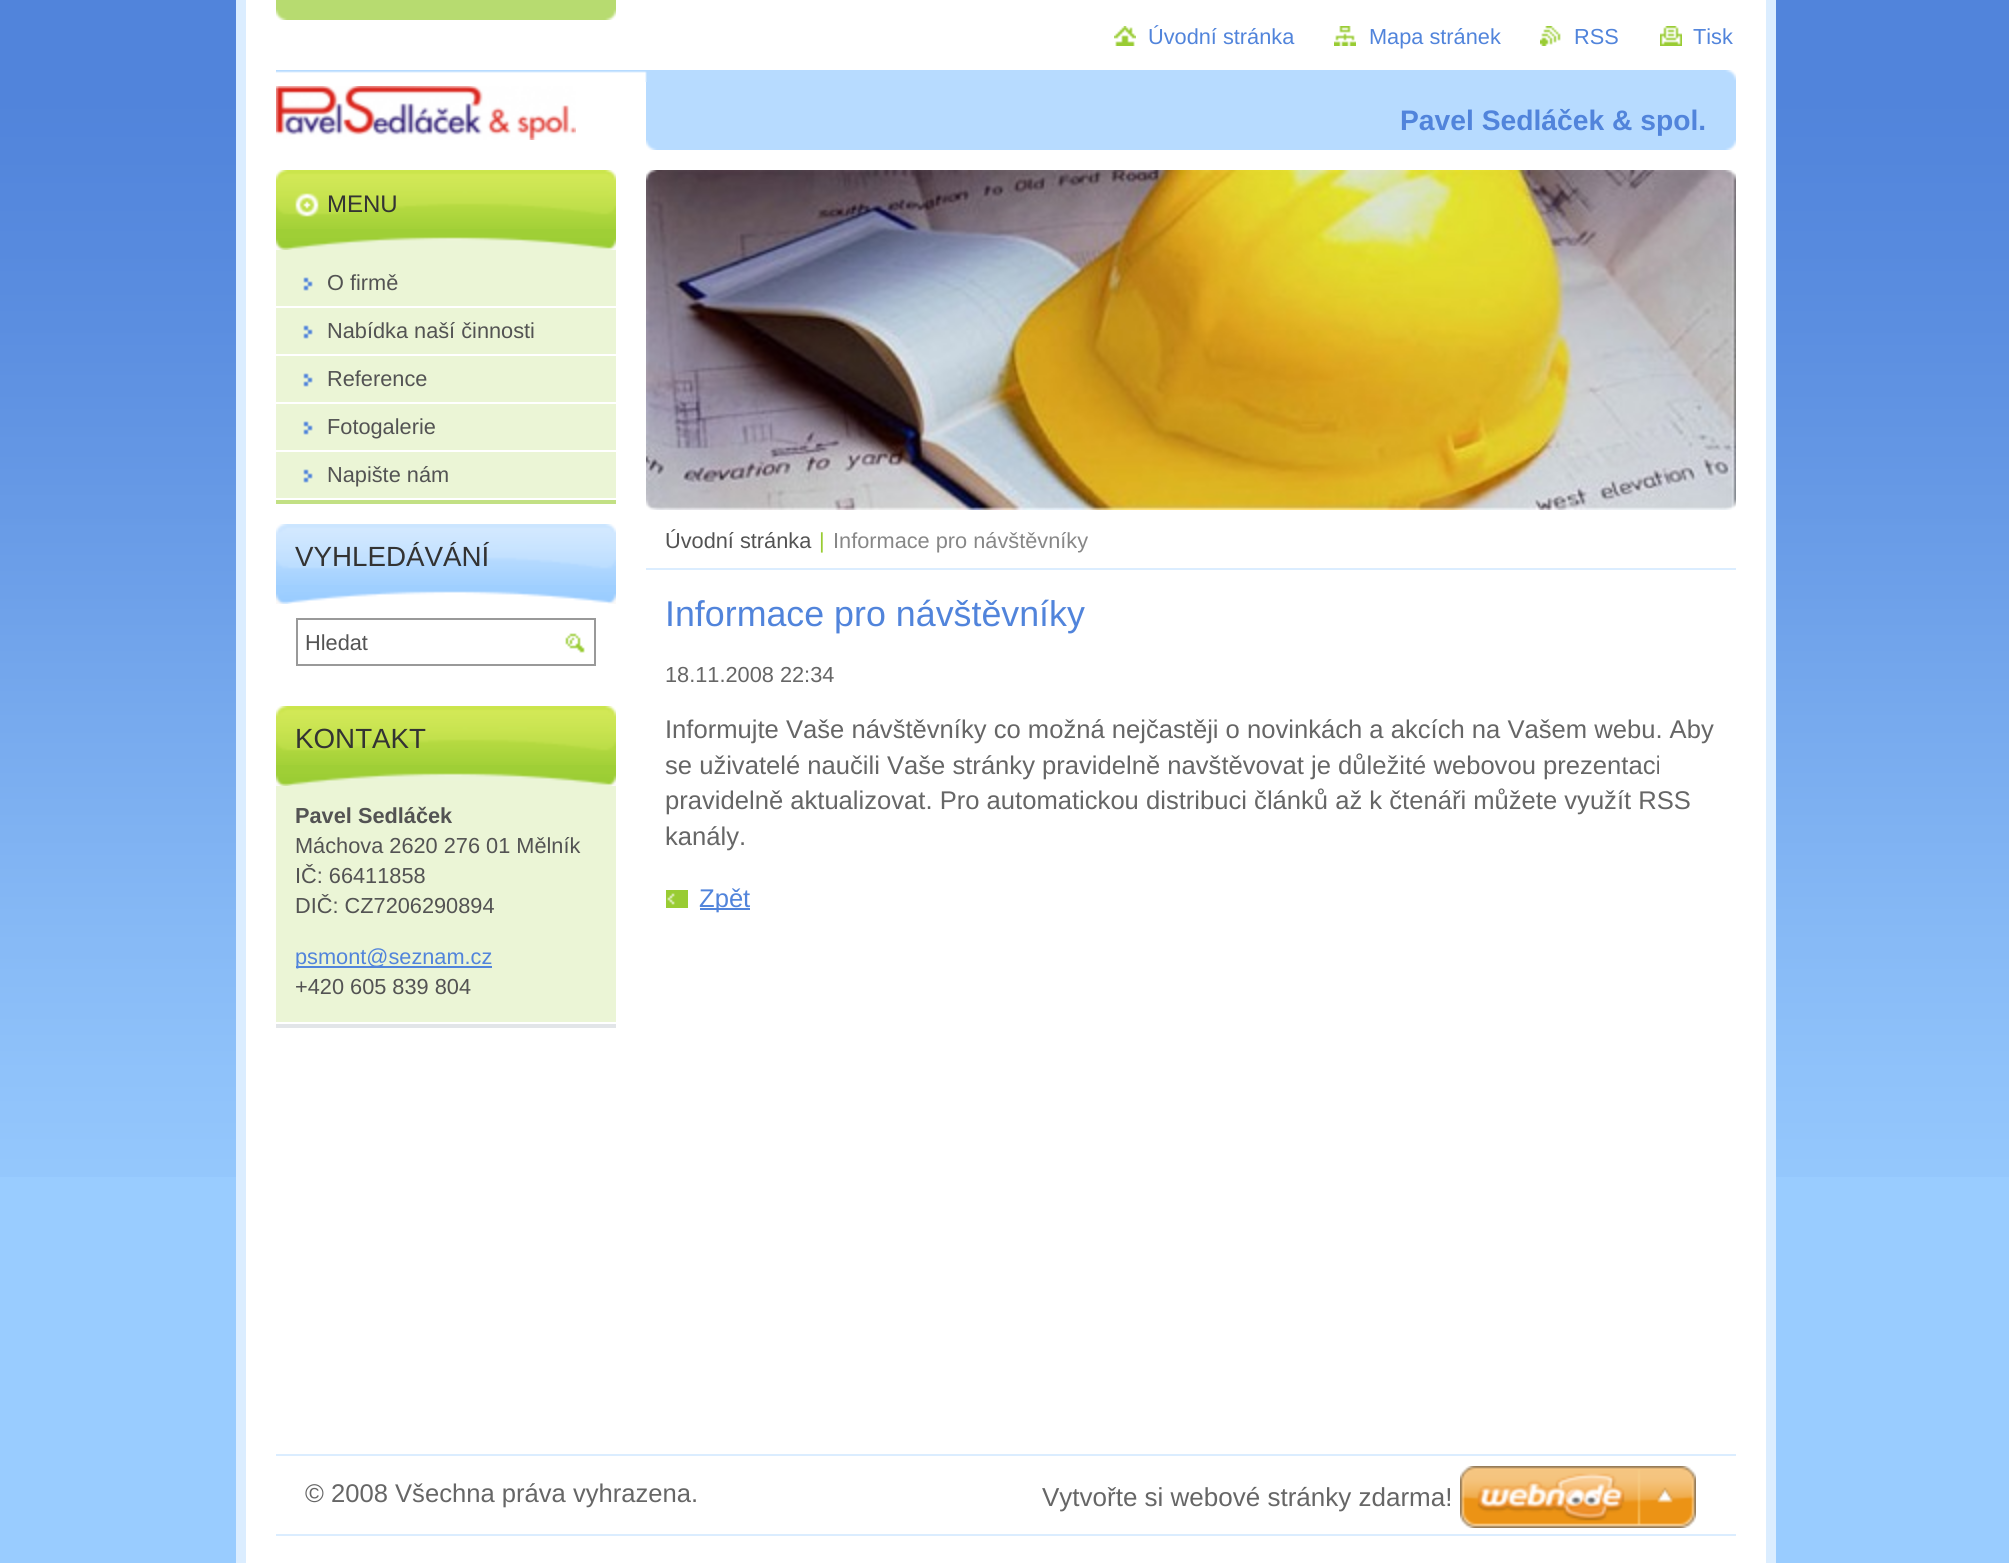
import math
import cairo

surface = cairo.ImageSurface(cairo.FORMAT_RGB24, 2009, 1563)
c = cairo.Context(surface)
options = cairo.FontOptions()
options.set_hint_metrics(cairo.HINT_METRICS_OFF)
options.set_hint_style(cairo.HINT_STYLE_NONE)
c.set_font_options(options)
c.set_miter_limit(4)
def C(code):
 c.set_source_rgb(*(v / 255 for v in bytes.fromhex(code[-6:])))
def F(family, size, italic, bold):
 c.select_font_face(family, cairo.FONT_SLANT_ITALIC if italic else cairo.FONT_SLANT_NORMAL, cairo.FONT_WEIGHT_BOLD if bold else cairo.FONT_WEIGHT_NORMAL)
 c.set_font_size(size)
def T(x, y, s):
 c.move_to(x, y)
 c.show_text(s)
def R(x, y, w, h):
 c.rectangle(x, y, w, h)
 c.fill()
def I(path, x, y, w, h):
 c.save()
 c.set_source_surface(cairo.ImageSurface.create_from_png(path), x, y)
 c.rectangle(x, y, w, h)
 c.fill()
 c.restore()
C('99ccff')
c.paint()
I('1.png',0,0,2009,1177)
C('ffffff')
R(246,0,1520,1563)
I('2.png',276,0,340,20)
C('dbedff')
R(1766,0,10,1563)
R(236,0,10,1563)
I('3.png',1114,26,22,20)
F('Liberation Sans',21.75,0,0)
C('5184db')
T(1148,44,'Úvodní stránka')
I('4.png',1334,26,22,20)
T(1369,44,'Mapa stránek')
I('5.png',1540,26,21,20)
T(1574,44,'RSS')
I('6.png',1660,26,22,20)
T(1693,44,'Tisk')
I('7.png',276,70,1460,12)
I('8.png',276,86,300,54)
C('b7dbff')
R(646,82,1090,58)
I('9.png',646,140,1090,10)
F('Liberation Sans',28.25,0,1)
C('5184db')
T(1400,130,'Pavel Sedláček & spol.')
C('c2e084')
R(276,500,340,4)
C('ebf5d6')
R(276,250,340,248)
C('9fcf36')
R(276,229,340,10)
I('10.png',276,170,340,59)
I('11.png',276,237,340,13)
F('Liberation Sans',24,0,0)
C('333333')
T(327,212,'MENU')
I('12.png',303,277,10,14)
C('ffffff')
R(276,306,340,2)
F('Liberation Sans',21.75,0,0)
C('535353')
T(327,290,'O firmě')
I('12.png',303,325,10,14)
C('ffffff')
R(276,354,340,2)
C('535353')
T(327,338,'Nabídka naší činnosti')
I('12.png',303,373,10,14)
C('ffffff')
R(276,402,340,2)
C('535353')
T(327,386,'Reference')
I('12.png',303,421,10,14)
C('ffffff')
R(276,450,340,2)
C('535353')
T(327,434,'Fotogalerie')
I('12.png',303,469,10,14)
T(327,482,'Napište nám')
C('9fcfff')
R(276,585,340,8)
I('13.png',276,524,340,61)
I('14.png',276,591,340,13)
F('Liberation Sans',27.75,0,0)
C('333333')
T(295,566,'VYHLEDÁVÁNÍ')
c.rectangle(297,619,298,46)
C('999999')
c.stroke()
F('Liberation Sans',21.75,0,0)
C('535353')
T(305,650,'Hledat')
I('15.png',565,633,20,20)
C('e2e5e8')
R(276,1024,340,4)
C('ebf5d6')
R(276,786,340,236)
C('9fcf36')
R(276,765,340,10)
I('16.png',276,706,340,59)
I('17.png',276,773,340,13)
F('Liberation Sans',27.75,0,0)
C('333333')
T(295,748,'KONTAKT')
F('Liberation Sans',21.75,0,1)
C('535353')
T(295,823,'Pavel Sedláček')
F('Liberation Sans',21.75,0,0)
T(295,853,'Máchova 2620 276 01 Mělník')
T(295,883,'IČ: 66411858')
T(295,913,'DIČ: CZ7206290894')
C('5184db')
R(296,966,196,2)
T(295,964,'psmont@seznam.cz')
C('535353')
T(295,994,'+420 605 839 804')
I('18.png',646,170,1090,340)
I('19.png',646,170,1090,340)
C('dbedff')
R(646,568,1090,2)
C('535353')
T(665,548,'Úvodní stránka')
C('99cc33')
T(819,548,'|')
C('878787')
T(833,548,'Informace pro návštěvníky')
F('Liberation Sans',35.8,0,0)
C('5184db')
T(665,626,'Informace pro návštěvníky')
F('Liberation Sans',21.75,0,0)
C('666666')
T(665,682,'18.11.2008 22:34')
F('Liberation Sans',25.6,0,0)
T(665,738,'Informujte Vaše návštěvníky co možná nejčastěji o novinkách a akcích na Vašem webu. Aby')
T(665,774,'se uživatelé naučili Vaše stránky pravidelně navštěvovat je důležité webovou prezentaci')
T(665,809,'pravidelně aktualizovat. Pro automatickou distribuci článků až k čtenáři můžete využít RSS')
T(665,845,'kanály.')
I('20.png',666,890,22,18)
C('5184db')
R(700,908,50,2)
T(699,907,'Zpět')
C('dbedff')
R(276,1454,1460,2)
R(276,1534,1460,2)
C('666666')
T(305,1502,'© 2008 Všechna práva vyhrazena.')
F('Liberation Sans',26,0,0)
T(1042,1506,'Vytvořte si webové stránky zdarma!')
I('21.png',1460,1466,236,62)
surface.write_to_png('o.png')
